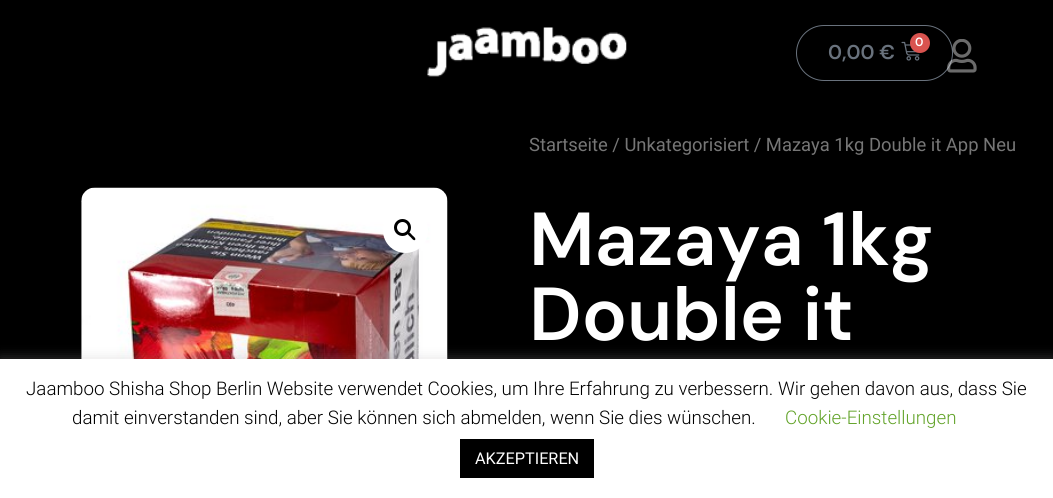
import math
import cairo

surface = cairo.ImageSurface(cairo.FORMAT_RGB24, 1053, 498)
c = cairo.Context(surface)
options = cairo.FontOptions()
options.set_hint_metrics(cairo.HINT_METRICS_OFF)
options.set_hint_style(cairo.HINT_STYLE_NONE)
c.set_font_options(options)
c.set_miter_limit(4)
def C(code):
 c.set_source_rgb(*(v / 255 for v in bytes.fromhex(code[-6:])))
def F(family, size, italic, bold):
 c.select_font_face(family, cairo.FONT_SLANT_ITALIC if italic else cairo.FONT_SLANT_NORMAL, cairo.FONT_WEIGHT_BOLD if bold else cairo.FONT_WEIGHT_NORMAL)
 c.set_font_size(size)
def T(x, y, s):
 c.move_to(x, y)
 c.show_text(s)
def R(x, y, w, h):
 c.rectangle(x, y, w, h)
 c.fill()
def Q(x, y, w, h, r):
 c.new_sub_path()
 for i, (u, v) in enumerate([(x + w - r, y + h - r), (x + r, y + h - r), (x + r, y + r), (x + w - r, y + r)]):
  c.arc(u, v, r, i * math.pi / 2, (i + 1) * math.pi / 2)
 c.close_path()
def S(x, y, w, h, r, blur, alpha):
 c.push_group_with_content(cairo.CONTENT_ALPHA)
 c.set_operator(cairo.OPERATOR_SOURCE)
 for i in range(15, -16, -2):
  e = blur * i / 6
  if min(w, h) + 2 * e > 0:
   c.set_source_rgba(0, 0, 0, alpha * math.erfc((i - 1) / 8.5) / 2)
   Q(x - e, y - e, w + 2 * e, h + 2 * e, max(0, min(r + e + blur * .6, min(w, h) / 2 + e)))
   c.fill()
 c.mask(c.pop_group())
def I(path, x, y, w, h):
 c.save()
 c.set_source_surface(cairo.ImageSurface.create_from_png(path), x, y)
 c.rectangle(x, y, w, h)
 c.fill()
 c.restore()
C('000000')
c.paint()
I('1.png',427,27,200,50)
Q(796.5,25.5,156,55,27.5)
C('69727d')
c.set_line_width(1)
c.stroke()
I('2.png',901,41,19,20)
C('d9534f')
c.arc(920,43,10,0,2 * math.pi)
c.fill()
F('DM Sans SemiBold',12,0,0)
C('ffffff')
T(915,46,'0')
F('DM Sans SemiBold',20,0,0)
C('69727d')
T(828,59,'0,00 €')
I('3.png',947,39,30,34)
I('4.png',81,187,367,172)
C('ffffff')
c.arc(405.5,230.5,22.5,0,2 * math.pi)
c.fill()
c.arc(402.5,227.5,7,0,2 * math.pi)
C('000000')
c.set_line_width(3)
c.stroke()
c.new_path()
c.move_to(408,232.5)
c.curve_to(409.5,231.5,411.5,234.5,412.5,235.5)
c.curve_to(413,236,416.5,238.5,415,240)
c.curve_to(413.5,241,411.5,238,410.5,237)
c.curve_to(410,236.5,406.5,234,408,232.5)
c.close_path()
c.fill()
F('Roboto',18.4,0,0)
C('767676')
T(529,151,'Startseite / Unkategorisiert / Mazaya 1kg Double it App Neu')
F('DM Sans SemiBold',75,0,0)
C('ffffff')
T(529,265,'Mazaya 1kg')
T(529,340,'Double it')
C('acabab')
S(0,358,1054,140,0,6,.3)
C('ffffff')
R(0,359,1053,139)
F('Roboto Light',18.75,0,0)
C('000000')
T(26,395,'Jaamboo Shisha Shop Berlin Website verwendet Cookies, um Ihre Erfahrung zu verbessern. Wir gehen davon aus, dass Sie')
T(72,424,'damit einverstanden sind, aber Sie können sich abmelden, wenn Sie dies wünschen.')
C('62a329')
T(785,424,'Cookie-Einstellungen')
C('000000')
R(460,439,134,39)
F('Roboto',16.25,0,0)
C('ffffff')
T(475,464,'AKZEPTIEREN')
surface.write_to_png('o.png')
